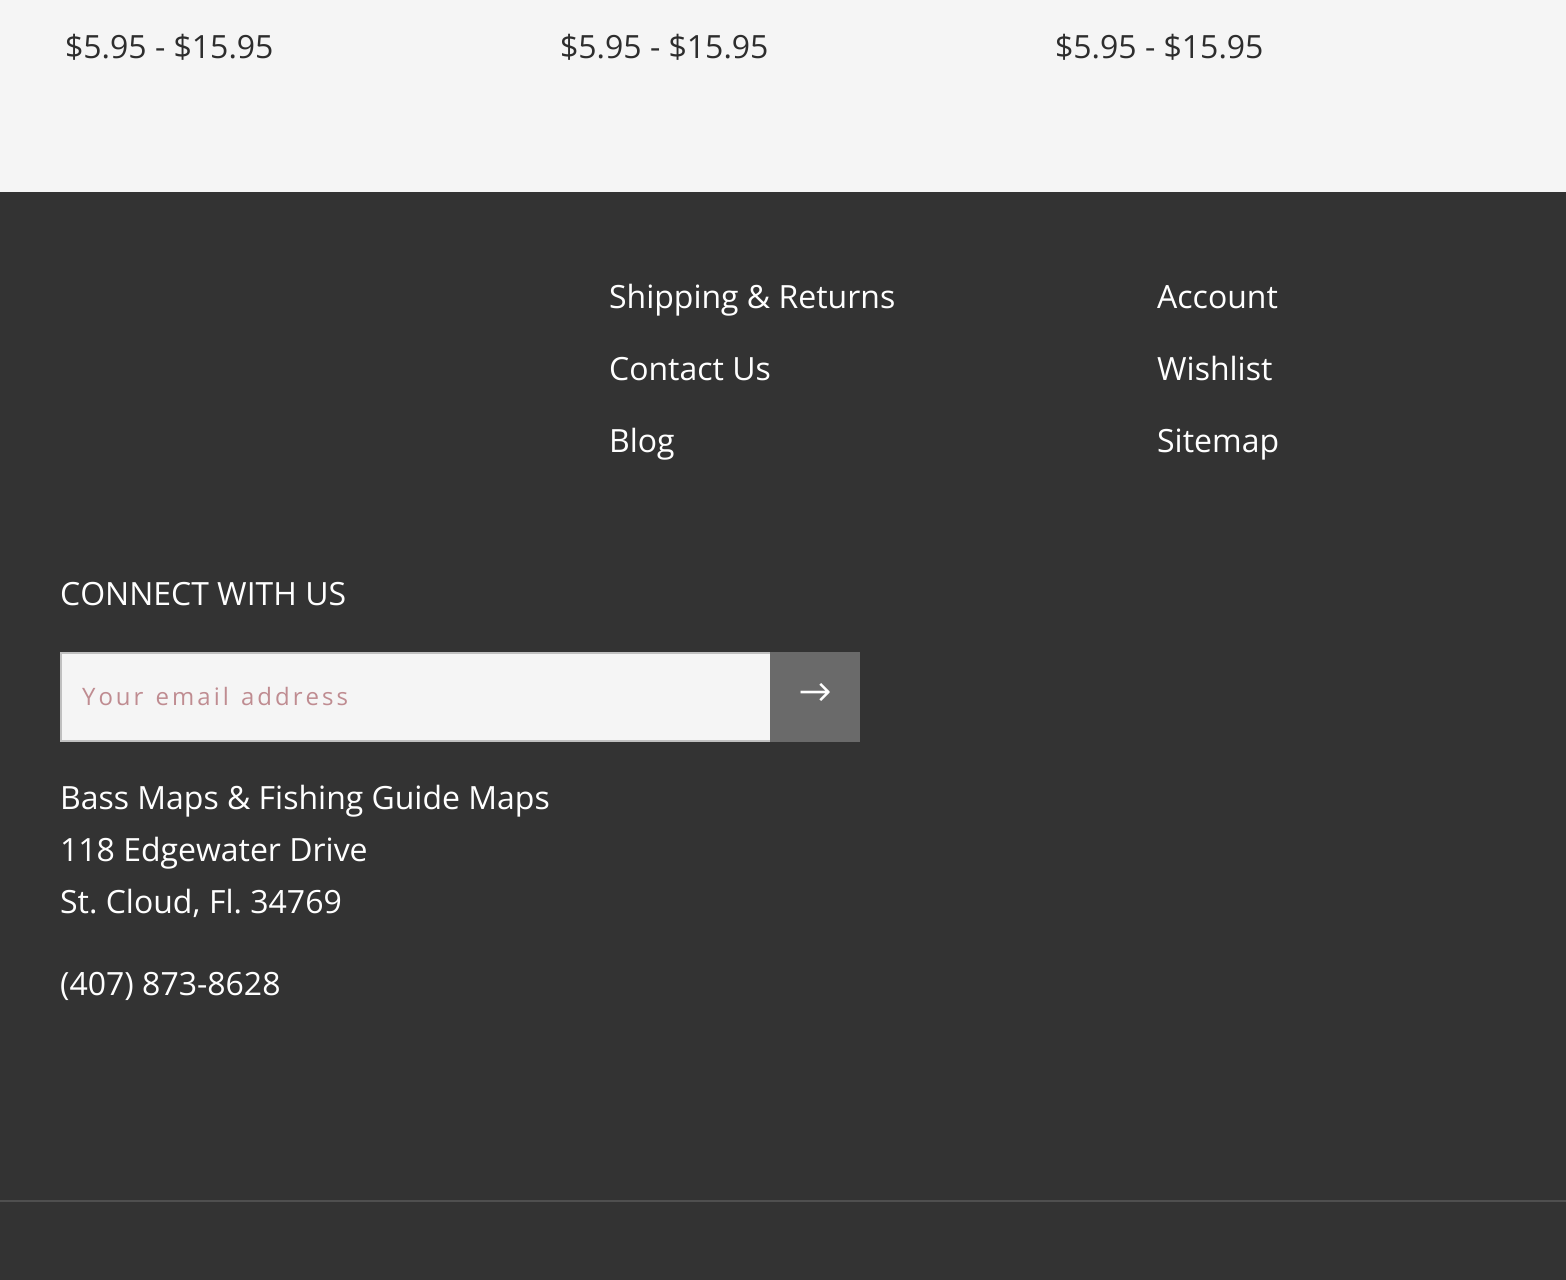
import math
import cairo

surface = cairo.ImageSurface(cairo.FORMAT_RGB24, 1566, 1280)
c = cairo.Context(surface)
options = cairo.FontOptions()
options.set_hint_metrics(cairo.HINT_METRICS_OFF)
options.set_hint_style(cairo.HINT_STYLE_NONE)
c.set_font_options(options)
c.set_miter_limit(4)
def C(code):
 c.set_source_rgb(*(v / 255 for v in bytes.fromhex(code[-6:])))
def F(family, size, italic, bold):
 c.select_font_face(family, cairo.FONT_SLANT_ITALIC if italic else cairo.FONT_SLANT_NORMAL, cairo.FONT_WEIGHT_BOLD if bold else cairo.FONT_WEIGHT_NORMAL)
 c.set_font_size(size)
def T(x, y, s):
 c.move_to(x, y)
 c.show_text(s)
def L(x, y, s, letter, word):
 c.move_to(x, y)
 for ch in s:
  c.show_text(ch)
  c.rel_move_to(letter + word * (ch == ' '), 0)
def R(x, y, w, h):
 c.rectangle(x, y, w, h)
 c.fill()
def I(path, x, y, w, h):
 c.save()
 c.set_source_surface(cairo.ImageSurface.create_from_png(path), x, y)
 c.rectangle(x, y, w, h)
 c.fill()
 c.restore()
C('f5f5f5')
c.paint()
F('Open Sans',32,0,0)
C('2d2d2d')
T(65,58,'$5.95 - $15.95')
T(560,58,'$5.95 - $15.95')
T(1055,58,'$5.95 - $15.95')
C('333333')
R(0,192,1566,1088)
C('ffffff')
T(609,308,'Shipping & Returns')
T(609,380,'Contact Us')
T(609,452,'Blog')
T(1157,308,'Account')
T(1157,380,'Wishlist')
T(1157,452,'Sitemap')
T(60,605,'CONNECT WITH US')
C('f5f5f5')
R(62,654,708,86)
c.rectangle(61,653,798,88)
C('c0c0c0')
c.stroke()
F('Open Sans',24,0,0)
C('bf8c91')
L(82,705,'Your email address',3,0)
C('6a6a6a')
R(770,652,90,90)
I('1.png',800,683,30,18)
F('Open Sans',32,0,0)
C('ffffff')
T(60,809,'Bass Maps & Fishing Guide Maps')
T(60,861,'118 Edgewater Drive')
T(60,913,'St. Cloud, Fl. 34769')
T(60,995,'(407) 873-8628')
C('4f4f4f')
R(0,1200,1566,2)
surface.write_to_png('o.png')
